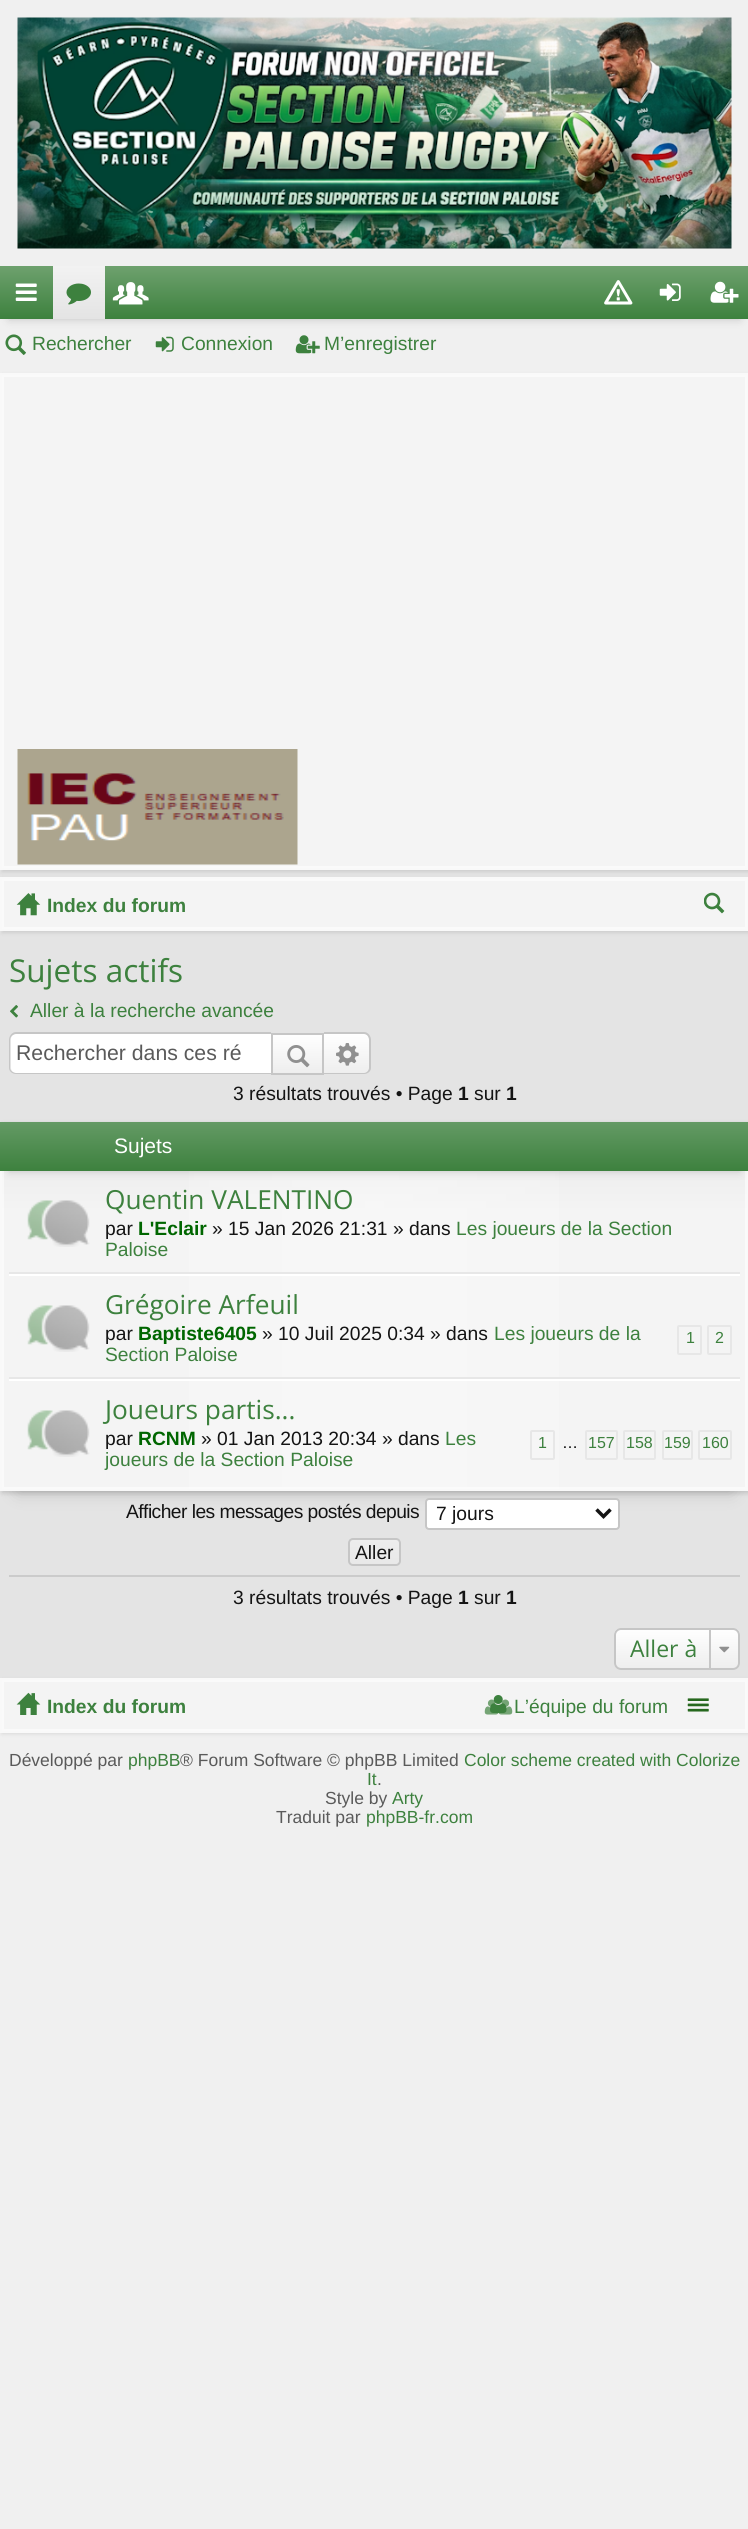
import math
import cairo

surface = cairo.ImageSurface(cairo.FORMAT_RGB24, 748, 2529)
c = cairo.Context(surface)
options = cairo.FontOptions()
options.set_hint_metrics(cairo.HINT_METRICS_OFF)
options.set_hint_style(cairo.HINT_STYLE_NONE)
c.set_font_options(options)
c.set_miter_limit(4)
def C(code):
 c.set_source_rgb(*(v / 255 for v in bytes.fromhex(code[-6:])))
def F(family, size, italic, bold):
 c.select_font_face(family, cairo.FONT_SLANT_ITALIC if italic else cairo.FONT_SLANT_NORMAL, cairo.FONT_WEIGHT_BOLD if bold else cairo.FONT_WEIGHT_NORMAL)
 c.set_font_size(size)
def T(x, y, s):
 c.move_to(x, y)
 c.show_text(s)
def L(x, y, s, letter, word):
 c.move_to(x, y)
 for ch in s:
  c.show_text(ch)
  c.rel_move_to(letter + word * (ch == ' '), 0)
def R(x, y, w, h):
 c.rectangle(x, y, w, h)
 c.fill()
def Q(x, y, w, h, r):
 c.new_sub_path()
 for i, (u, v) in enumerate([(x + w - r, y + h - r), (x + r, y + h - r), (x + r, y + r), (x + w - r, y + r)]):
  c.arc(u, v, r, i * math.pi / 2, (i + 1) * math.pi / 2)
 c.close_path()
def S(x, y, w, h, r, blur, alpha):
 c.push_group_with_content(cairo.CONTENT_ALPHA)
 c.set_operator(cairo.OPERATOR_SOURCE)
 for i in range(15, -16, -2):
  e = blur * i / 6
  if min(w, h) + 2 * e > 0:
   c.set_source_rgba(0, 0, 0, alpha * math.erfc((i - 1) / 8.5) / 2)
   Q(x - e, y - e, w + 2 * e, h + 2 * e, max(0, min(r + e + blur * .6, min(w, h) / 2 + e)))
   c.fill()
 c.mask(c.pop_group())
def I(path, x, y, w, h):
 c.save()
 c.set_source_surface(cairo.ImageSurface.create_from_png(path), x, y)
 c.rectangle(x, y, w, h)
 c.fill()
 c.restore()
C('f0f0f0')
c.paint()
I('1.png',17,17,715,232)
C('000000')
S(9,284,731,35,0,4.5,.2)
gradient = cairo.LinearGradient(375,266,375,319)
gradient.add_color_stop_rgba(0,0.431,0.631,0.431,1)
gradient.add_color_stop_rgba(1,0.239,0.506,0.243,1)
c.set_source(gradient)
R(0,266,748,53)
I('2.png',15,283,22,18)
gradient = cairo.LinearGradient(79,266,79,319)
gradient.add_color_stop_rgba(0,0.949,0.949,0.949,1)
gradient.add_color_stop_rgba(1,0.894,0.894,0.894,1)
c.set_source(gradient)
R(53,266,52,53)
I('3.png',66,283,25,22)
I('4.png',112,282,37,23)
I('5.png',604,280,29,25)
I('6.png',659,283,22,18)
I('7.png',710,281,29,22)
I('8.png',5,334,21,21)
F('Liberation Sans',19.25,0,0)
C('3d813e')
T(32,350,'Rechercher')
I('9.png',155,336,19,16)
T(181,350,'Connexion')
I('10.png',295,335,25,19)
T(324,350,'M’enregistrer')
C('e4e4e4')
R(0,870,748,808)
C('000000')
S(2,879,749,54,0,2,.1)
C('f4f4f4')
c.rectangle(3,880,743,48)
c.fill_preserve()
C('fafafa')
c.stroke()
c.rectangle(1,878,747,52)
C('f9f9f9')
c.stroke()
C('000000')
S(2,375,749,497,0,2,.1)
C('f4f4f4')
c.rectangle(3,376,743,491)
c.fill_preserve()
C('fafafa')
c.stroke()
c.rectangle(1,374,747,495)
C('f9f9f9')
c.stroke()
I('11.png',17,749,281,116)
I('12.png',16,893,25,23)
F('Liberation Sans',19.25,0,1)
C('3d813e')
T(47,912,'Index du forum')
I('13.png',704,892,21,22)
F('Open Sans',31.5,0,0)
T(9,982,'Sujets actifs')
I('14.png',10,1005,8,13)
F('Liberation Sans',19.25,0,0)
T(30,1017,'Aller à la recherche avancée')
C('ffffff')
c.new_path()
c.move_to(16,1034)
c.line_to(271,1034)
c.line_to(271,1073)
c.line_to(16,1073)
c.curve_to(13,1073,11,1071,11,1068)
c.line_to(11,1039)
c.curve_to(11,1036,13,1034,16,1034)
c.close_path()
c.fill()
C('c6c6c6')
c.set_fill_rule(cairo.FILL_RULE_EVEN_ODD)
c.new_path()
c.move_to(16,1032)
c.line_to(271,1032)
c.line_to(271,1074)
c.line_to(16,1074)
c.curve_to(12,1074,9,1071,9,1068)
c.line_to(9,1040)
c.curve_to(9,1036,12,1032,16,1032)
c.close_path()
c.move_to(16,1034)
c.line_to(271,1034)
c.line_to(271,1073)
c.line_to(16,1073)
c.curve_to(13,1073,10,1070,10,1068)
c.line_to(10,1040)
c.curve_to(10,1037,13,1034,16,1034)
c.close_path()
c.fill()
F('Liberation Sans',21.25,0,0)
C('5a5a5a')
T(16,1060,'Rechercher dans ces ré')
gradient = cairo.LinearGradient(298,1034,298,1073)
gradient.add_color_stop_rgba(0,1,1,1,1)
gradient.add_color_stop_rgba(1,0.933,0.933,0.933,1)
c.set_source(gradient)
R(273,1035,49,38)
c.rectangle(272,1034,51,40)
C('c6c6c6')
c.stroke()
I('15.png',287,1045,23,23)
C('eeeeee')
c.new_path()
c.move_to(324,1034)
c.line_to(364,1034)
c.curve_to(367,1034,369,1036,369,1039)
c.line_to(369,1068)
c.curve_to(369,1071,367,1073,364,1073)
c.line_to(324,1073)
c.close_path()
c.fill()
gradient = cairo.LinearGradient(347,1034,347,1073)
gradient.add_color_stop_rgba(0,1,1,1,1)
gradient.add_color_stop_rgba(1,1,1,1,0)
c.set_source(gradient)
c.new_path()
c.move_to(324,1034)
c.line_to(364,1034)
c.curve_to(367,1034,369,1036,369,1039)
c.line_to(369,1068)
c.curve_to(369,1071,367,1073,364,1073)
c.line_to(324,1073)
c.close_path()
c.fill()
C('c6c6c6')
c.new_path()
c.move_to(324,1032)
c.line_to(364,1032)
c.curve_to(368,1032,371,1036,371,1040)
c.line_to(371,1068)
c.curve_to(371,1071,368,1074,364,1074)
c.line_to(324,1074)
c.close_path()
c.move_to(324,1034)
c.line_to(364,1034)
c.curve_to(367,1034,369,1037,369,1040)
c.line_to(369,1068)
c.curve_to(369,1070,367,1073,364,1073)
c.line_to(324,1073)
c.close_path()
c.fill()
I('16.png',336,1043,23,23)
F('Liberation Sans',19.25,0,0)
C('141414')
T(233,1100,'3 résultats trouvés • Page')
F('Liberation Sans',19.25,0,1)
T(458,1100,'1')
F('Liberation Sans',19.25,0,0)
T(474,1100,'sur')
F('Liberation Sans',19.25,0,1)
T(506,1100,'1')
C('000000')
S(18,1157,714,334,0,9,.2)
S(2,1124,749,369,0,2.5,.15)
gradient = cairo.LinearGradient(375,1124,375,1489)
gradient.add_color_stop_rgba(0,0.925,0.925,0.925,1)
gradient.add_color_stop_rgba(.05,0.918,0.918,0.918,1)
gradient.add_color_stop_rgba(.24,0.957,0.957,0.957,1)
c.set_source(gradient)
R(2,1171,745,318)
gradient = cairo.LinearGradient(1.8,1306,747,1306)
gradient.add_color_stop_rgba(0,1,1,1,0)
gradient.add_color_stop_rgba(.5,1,1,1,.3)
gradient.add_color_stop_rgba(1,1,1,1,0)
c.set_source(gradient)
R(189,1171,370,318)
c.rectangle(3,1125,743,363)
c.set_source_rgba(1,1,1,0.5)
c.stroke()
c.rectangle(1,1123,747,367)
C('f9f9f9')
c.stroke()
C('000000')
S(9,1139,731,32,0,4.5,.2)
gradient = cairo.LinearGradient(375,1122,375,1171)
gradient.add_color_stop_rgba(0,0.392,0.604,0.396,1)
gradient.add_color_stop_rgba(1,0.239,0.506,0.243,1)
c.set_source(gradient)
R(0,1122,748,49)
F('Liberation Sans',21,0,0)
C('ffffff')
T(114,1153,'Sujets')
C('e7e7e7')
R(9,1272,731,2)
I('17.png',27,1200,63,47)
F('Open Sans',26.25,0,0)
C('3d813e')
T(105,1209,'Quentin VALENTINO')
F('Liberation Sans',19.25,0,0)
C('141414')
T(105,1235,'par')
F('Liberation Sans',19.25,0,1)
C('006600')
T(138,1235,'L\'Eclair')
F('Liberation Sans',19.25,0,0)
C('141414')
T(212,1235,'» 15 Jan 2026 21:31 » dans')
C('3d813e')
T(456,1235,'Les joueurs de la Section')
T(105,1256,'Paloise')
C('ffffff')
R(9,1274,731,2)
C('e7e7e7')
R(9,1377,731,2)
I('18.png',27,1305,63,47)
F('Open Sans',26.25,0,0)
C('3d813e')
T(105,1314,'Grégoire Arfeuil')
F('Liberation Sans',19.25,0,0)
C('141414')
T(105,1340,'par')
F('Liberation Sans',19.25,0,1)
C('006600')
T(138,1340,'Baptiste6405')
F('Liberation Sans',19.25,0,0)
C('141414')
T(262,1340,'» 10 Juil 2025 0:34 » dans')
C('3d813e')
T(494,1340,'Les joueurs de la')
Q(678,1326,23,28,1)
C('e7e7e7')
c.stroke()
F('Liberation Sans',16,0,0)
C('3d813e')
T(686,1343,'1')
Q(708,1326,23,28,1)
C('e7e7e7')
c.stroke()
C('3d813e')
T(715,1343,'2')
F('Liberation Sans',19.25,0,0)
T(105,1361,'Section Paloise')
C('ffffff')
R(9,1379,731,2)
I('18.png',27,1410,63,47)
F('Open Sans',26.25,0,0)
C('3d813e')
T(105,1419,'Joueurs partis...')
F('Liberation Sans',19.25,0,0)
C('141414')
T(105,1445,'par')
F('Liberation Sans',19.25,0,1)
C('006600')
T(138,1445,'RCNM')
F('Liberation Sans',19.25,0,0)
C('141414')
T(201,1445,'» 01 Jan 2013 20:34 » dans')
C('3d813e')
T(445,1445,'Les')
Q(531,1431,23,28,1)
C('e7e7e7')
c.stroke()
F('Liberation Sans',16,0,0)
C('3d813e')
T(538,1448,'1')
C('000000')
T(562,1448,'…')
Q(586,1431,31,28,1)
C('e7e7e7')
c.stroke()
C('3d813e')
T(588,1448,'157')
Q(624,1431,31,28,1)
C('e7e7e7')
c.stroke()
C('3d813e')
T(626,1448,'158')
Q(663,1431,29,28,1)
C('e7e7e7')
c.stroke()
C('3d813e')
T(664,1448,'159')
Q(699,1431,32,28,1)
C('e7e7e7')
c.stroke()
C('3d813e')
T(702,1448,'160')
F('Liberation Sans',19.25,0,0)
T(105,1466,'joueurs de la Section Paloise')
C('141414')
L(126,1518,'Afficher les messages postés depuis',-.55,0)
C('ffffff')
Q(426,1499,193,30,3)
c.fill_preserve()
C('c6c6c6')
c.stroke()
c.new_path()
c.move_to(596.5,1509.5)
c.line_to(603.5,1516.5)
c.line_to(610.5,1509.5)
C('141414')
c.set_line_width(3.5)
c.stroke()
T(436,1520,'7 jours')
c.save()
c.set_fill_rule(cairo.FILL_RULE_WINDING)
Q(348,1538,53,28,5)
c.clip()
gradient = cairo.LinearGradient(375,1540,375,1565)
gradient.add_color_stop_rgba(0,0.929,0.929,0.929,1)
gradient.add_color_stop_rgba(1,0.91,0.91,0.91,1)
c.set_source(gradient)
R(348,1540,53,25)
c.restore()
Q(349,1539,51,26,4)
C('c6c6c6')
c.set_line_width(2)
c.stroke()
C('141414')
T(355,1559,'Aller')
C('cbcbcb')
R(9,1575,731,2)
C('141414')
T(233,1604,'3 résultats trouvés • Page')
F('Liberation Sans',19.25,0,1)
T(458,1604,'1')
F('Liberation Sans',19.25,0,0)
T(474,1604,'sur')
F('Liberation Sans',19.25,0,1)
T(506,1604,'1')
C('eeeeee')
Q(614,1628,126,42,7)
c.fill()
c.save()
c.set_fill_rule(cairo.FILL_RULE_WINDING)
Q(614,1628,126,42,7)
c.clip()
gradient = cairo.LinearGradient(677,1629,677,1668)
gradient.add_color_stop_rgba(0,1,1,1,1)
gradient.add_color_stop_rgba(1,1,1,1,0)
c.set_source(gradient)
R(614,1629,126,38)
c.restore()
Q(615,1629,124,40,6)
C('c6c6c6')
c.stroke()
F('Open Sans',23,0,0)
C('3d813e')
T(630,1657,'Aller à')
C('c6c6c6')
R(709,1629,2,39)
I('19.png',719,1646,11,7)
C('000000')
S(2,1680,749,54,0,2,.1)
C('f4f4f4')
c.rectangle(3,1681,743,49)
c.fill_preserve()
C('fafafa')
c.stroke()
c.rectangle(1,1679,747,53)
C('f9f9f9')
c.stroke()
I('20.png',16,1692,25,23)
F('Liberation Sans',19.25,0,1)
C('3d813e')
T(47,1713,'Index du forum')
I('22.png',484,1699,29,16)
I('21.png',490,1695,17,18)
F('Liberation Sans',19.25,0,0)
T(514,1713,'L’équipe du forum')
I('23.png',687,1698,22,14)
F('Liberation Sans',17.5,0,0)
C('5a5a5a')
T(9,1766,'Développé par')
C('3d813e')
T(128,1766,'phpBB')
C('5a5a5a')
T(180,1766,'® Forum Software © phpBB Limited')
C('3d813e')
T(464,1766,'Color scheme created with Colorize')
T(367,1785,'It')
C('5a5a5a')
T(377,1785,'.')
T(325,1804,'Style by')
C('3d813e')
T(392,1804,'Arty')
C('5a5a5a')
T(276,1823,'Traduit par')
C('3d813e')
T(366,1823,'phpBB-fr.com')
surface.write_to_png('o.png')
